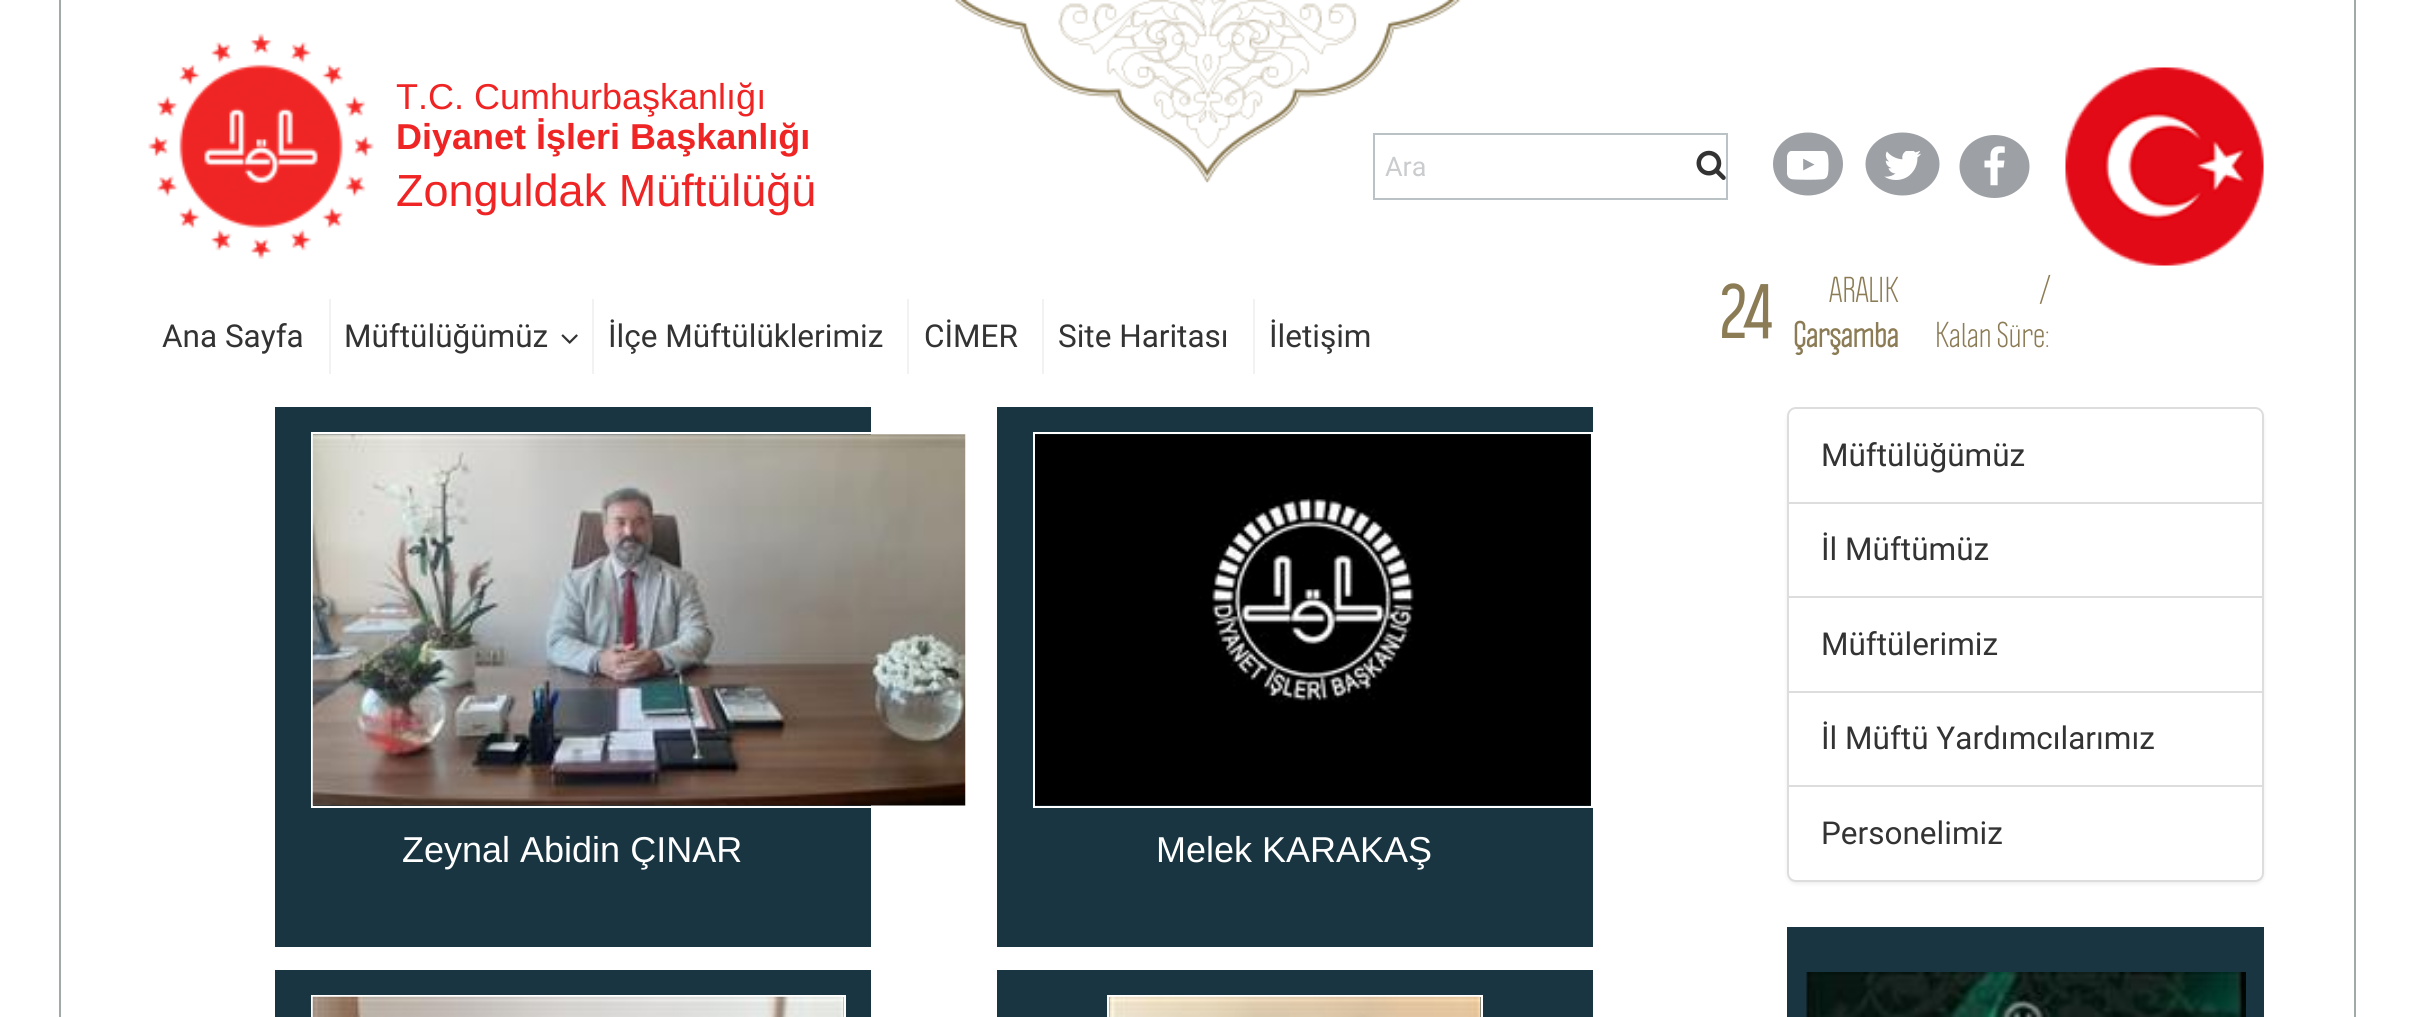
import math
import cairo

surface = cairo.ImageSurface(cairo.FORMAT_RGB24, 2410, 1017)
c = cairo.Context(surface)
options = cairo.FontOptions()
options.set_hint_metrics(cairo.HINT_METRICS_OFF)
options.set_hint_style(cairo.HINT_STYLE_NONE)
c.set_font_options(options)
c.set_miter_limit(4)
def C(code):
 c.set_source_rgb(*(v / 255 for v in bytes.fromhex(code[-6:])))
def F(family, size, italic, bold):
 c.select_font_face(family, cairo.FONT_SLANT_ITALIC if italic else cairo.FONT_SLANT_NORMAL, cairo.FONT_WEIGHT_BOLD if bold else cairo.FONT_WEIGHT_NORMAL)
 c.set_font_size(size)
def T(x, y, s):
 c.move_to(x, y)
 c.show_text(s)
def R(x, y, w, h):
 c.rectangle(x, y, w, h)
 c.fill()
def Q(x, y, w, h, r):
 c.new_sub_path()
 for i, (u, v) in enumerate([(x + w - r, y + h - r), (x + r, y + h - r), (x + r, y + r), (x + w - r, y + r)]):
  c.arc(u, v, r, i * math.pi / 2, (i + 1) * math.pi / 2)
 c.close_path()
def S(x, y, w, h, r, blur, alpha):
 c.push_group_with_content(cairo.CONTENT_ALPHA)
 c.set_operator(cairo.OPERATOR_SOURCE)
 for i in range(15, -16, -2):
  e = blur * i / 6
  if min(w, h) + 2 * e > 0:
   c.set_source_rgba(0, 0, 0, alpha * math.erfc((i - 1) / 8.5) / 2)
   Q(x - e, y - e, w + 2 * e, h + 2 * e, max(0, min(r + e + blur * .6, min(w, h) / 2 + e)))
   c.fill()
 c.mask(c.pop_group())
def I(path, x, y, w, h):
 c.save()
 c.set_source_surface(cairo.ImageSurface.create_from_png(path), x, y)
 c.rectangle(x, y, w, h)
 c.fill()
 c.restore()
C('ffffff')
c.paint()
C('a1aaa6')
R(2354,0,2,1017)
R(59,0,2,1017)
I('1.png',954,0,507,183)
I('2.png',148,33,226,226)
F('Liberation Sans',36,0,0)
C('ee2524')
T(396,109,'T.C. Cumhurbaşkanlığı')
F('Liberation Sans',36,0,1)
T(396,149,'Diyanet İşleri Başkanlığı')
F('Liberation Sans',45,0,0)
T(396,206,'Zonguldak Müftülüğü')
c.rectangle(1374,134,353,65)
C('bac2c6')
c.stroke()
F('Roboto',27,0,0)
C('caccce')
T(1385,176,'Ara')
I('3.png',1696,150,30,30)
C('9da0a5')
c.new_path()
c.move_to(1808,132.5)
c.curve_to(1827.5,132.5,1843,146.5,1843,164)
c.curve_to(1843,181.5,1827.5,195.5,1808,195.5)
c.curve_to(1788.5,195.5,1773,181.5,1773,164)
c.curve_to(1773,146.5,1788.5,132.5,1808,132.5)
c.close_path()
c.fill()
I('4.png',1787,151,42,29)
c.new_path()
c.move_to(1902.5,132.5)
c.curve_to(1923,132.5,1939.5,146.5,1939.5,164)
c.curve_to(1939.5,181.5,1923,195.5,1902.5,195.5)
c.curve_to(1882,195.5,1865.5,181.5,1865.5,164)
c.curve_to(1865.5,146.5,1882,132.5,1902.5,132.5)
c.close_path()
c.fill()
I('5.png',1884,151,37,29)
c.new_path()
c.move_to(1994.5,135)
c.curve_to(2014,135,2029.5,149,2029.5,166.5)
c.curve_to(2029.5,184,2014,198,1994.5,198)
c.curve_to(1975,198,1959.5,184,1959.5,166.5)
c.curve_to(1959.5,149,1975,135,1994.5,135)
c.close_path()
c.fill()
I('6.png',1984,146,21,40)
I('7.png',2065,67,199,199)
C('f2f2f2')
R(329,299,2,75)
F('Roboto',31.5,0,0)
C('333333')
T(162,347,'Ana Sayfa')
C('f2f2f2')
R(592,299,2,75)
C('333333')
T(344,347,'Müftülüğümüz')
I('8.png',561,334,17,10)
C('f2f2f2')
R(907,299,2,75)
C('333333')
T(608,347,'İlçe Müftülüklerimiz')
C('f2f2f2')
R(1042,299,2,75)
C('333333')
T(924,347,'CİMER')
C('f2f2f2')
R(1253,299,2,75)
C('333333')
T(1058,347,'Site Haritası')
T(1269,347,'İletişim')
F('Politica',68,0,1)
C('8c7c56')
T(1720,338,'24')
F('Politica',31.5,0,0)
T(1829,302,'ARALIK')
F('Politica',31.5,0,1)
T(1793,347,'Çarşamba')
F('Politica',31.5,0,0)
T(2040,302,'/')
T(1935,347,'Kalan Süre:')
C('000000')
S(1787,410,477,474,9,2,.07)
C('ffffff')
c.new_path()
c.move_to(1796,408)
c.line_to(2255,408)
c.curve_to(2259.5,408,2263,411.5,2263,416)
c.line_to(2263,503)
c.line_to(1788,503)
c.line_to(1788,416)
c.curve_to(1788,411.5,1791.5,408,1796,408)
c.close_path()
c.fill_preserve()
C('dddddd')
c.stroke()
F('Roboto',31.5,0,0)
C('333333')
T(1821,466,'Müftülüğümüz')
C('ffffff')
R(1789,504,473,92)
c.rectangle(1788,503,475,95)
C('dddddd')
c.stroke()
C('333333')
T(1821,560,'İl Müftümüz')
C('ffffff')
c.rectangle(1788,597,475,95)
c.fill_preserve()
C('dddddd')
c.stroke()
C('333333')
T(1821,655,'Müftülerimiz')
C('ffffff')
R(1789,693,473,92)
c.rectangle(1788,692,475,95)
C('dddddd')
c.stroke()
C('333333')
T(1821,749,'İl Müftü Yardımcılarımız')
C('ffffff')
c.new_path()
c.move_to(1788,786)
c.line_to(2263,786)
c.line_to(2263,873)
c.curve_to(2263,877.5,2259.5,881,2255,881)
c.line_to(1796,881)
c.curve_to(1791.5,881,1788,877.5,1788,873)
c.close_path()
c.fill_preserve()
C('dddddd')
c.stroke()
C('333333')
T(1821,844,'Personelimiz')
C('193541')
R(1787,927,477,90)
I('9.png',1806,972,440,45)
R(275,407,596,540)
c.rectangle(312,433,655,374)
C('ffffff')
c.stroke()
I('10.png',312,434,654,372)
F('Liberation Sans',36,0,0)
T(402,862,'Zeynal Abidin ÇINAR')
C('193541')
R(997,407,596,540)
c.rectangle(1034,433,558,374)
C('ffffff')
c.stroke()
I('11.png',1035,434,556,372)
T(1156,862,'Melek KARAKAŞ')
C('193541')
R(275,970,596,47)
c.rectangle(312,996,533,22)
C('ffffff')
c.stroke()
I('12.png',312,996,532,21)
C('193541')
R(997,970,596,47)
c.rectangle(1108,996,374,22)
C('ffffff')
c.stroke()
I('13.png',1109,996,372,21)
surface.write_to_png('o.png')
